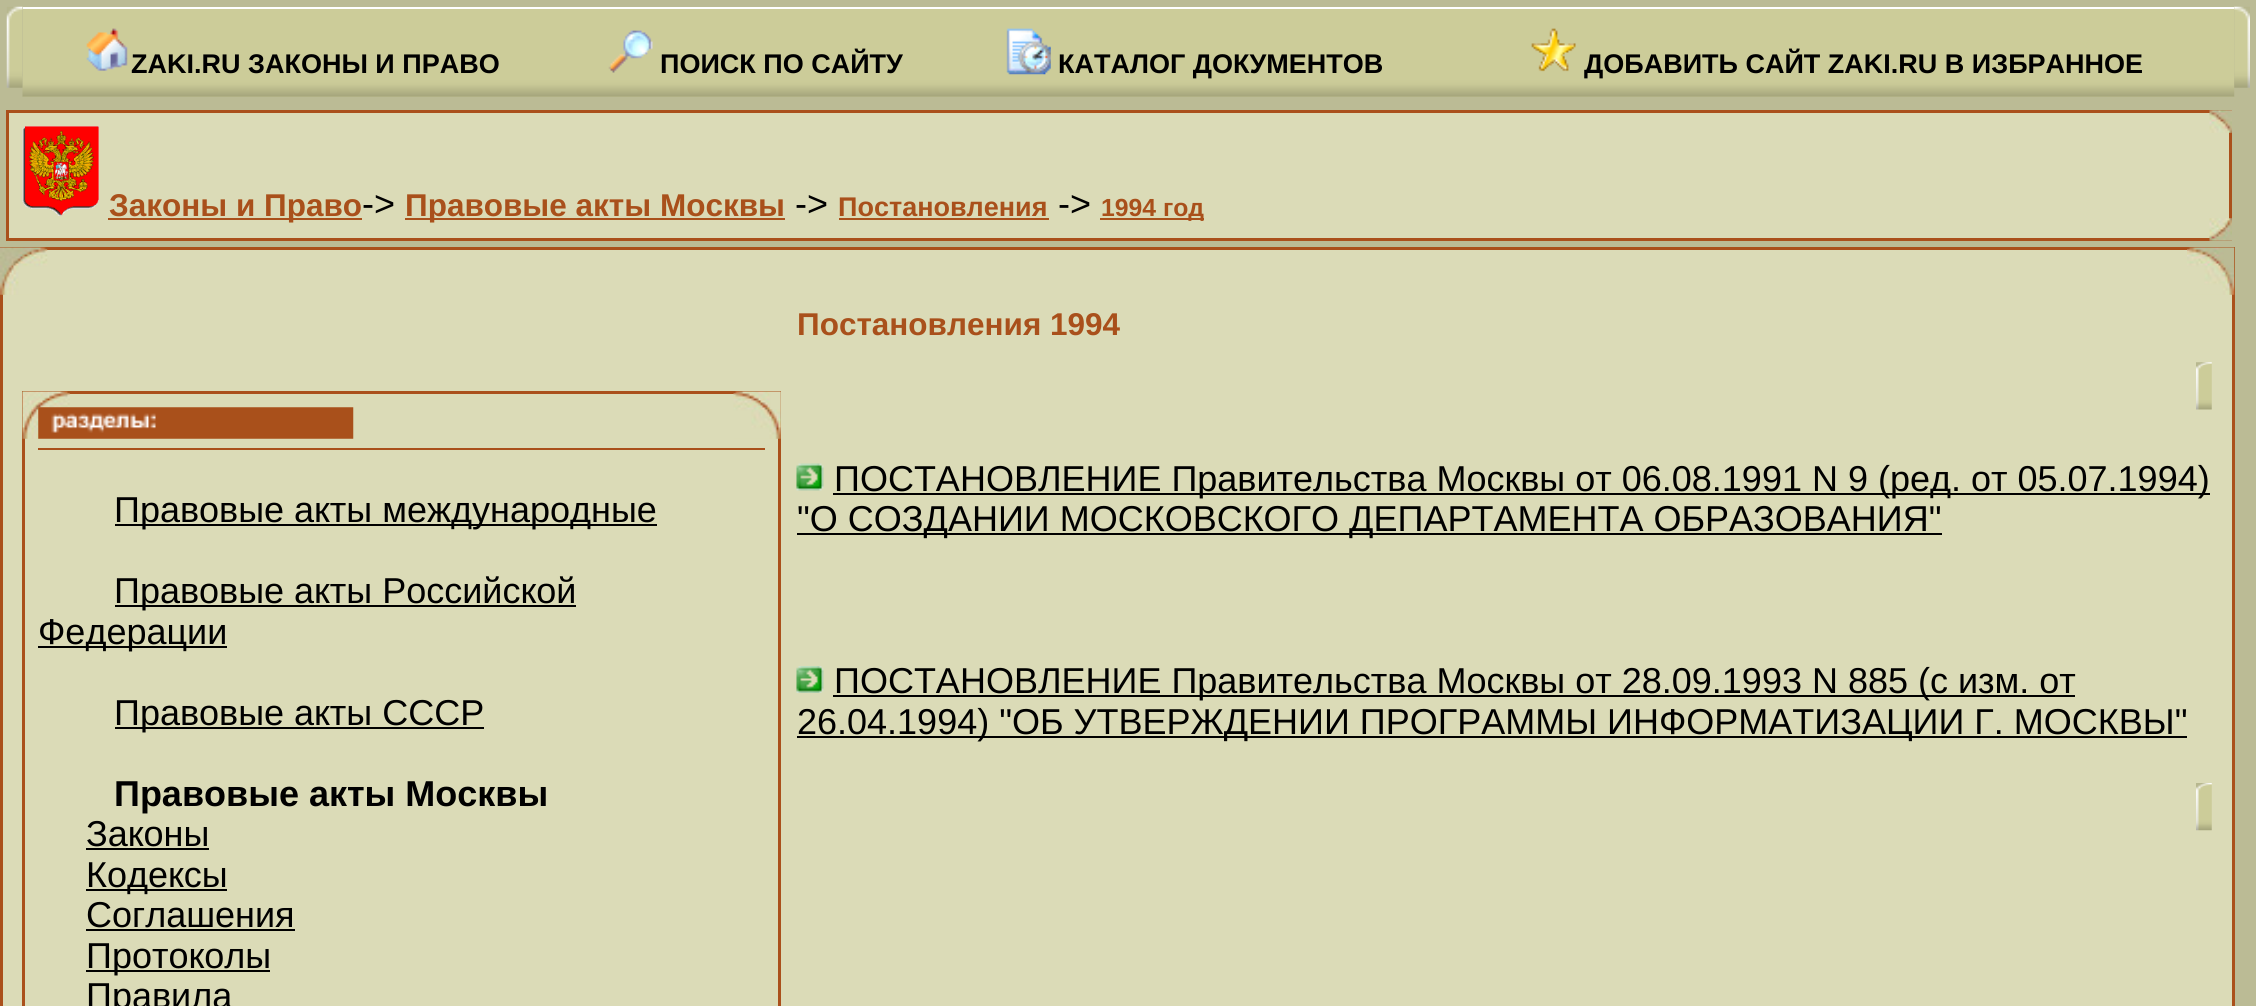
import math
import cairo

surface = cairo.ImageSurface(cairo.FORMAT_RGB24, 2256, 1006)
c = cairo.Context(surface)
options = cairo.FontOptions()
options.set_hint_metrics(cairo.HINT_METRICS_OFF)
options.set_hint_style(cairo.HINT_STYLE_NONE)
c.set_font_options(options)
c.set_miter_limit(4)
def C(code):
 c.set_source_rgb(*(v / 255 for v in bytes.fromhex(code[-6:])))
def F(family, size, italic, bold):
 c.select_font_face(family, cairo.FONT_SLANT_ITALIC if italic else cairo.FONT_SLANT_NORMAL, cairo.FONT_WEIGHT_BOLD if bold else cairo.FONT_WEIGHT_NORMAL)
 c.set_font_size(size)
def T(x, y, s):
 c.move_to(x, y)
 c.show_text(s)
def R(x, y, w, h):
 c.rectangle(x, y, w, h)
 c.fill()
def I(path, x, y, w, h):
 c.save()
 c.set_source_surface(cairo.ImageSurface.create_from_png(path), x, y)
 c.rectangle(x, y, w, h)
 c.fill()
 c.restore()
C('bbbb95')
c.paint()
C('cccc99')
R(23,9,2211,88)
I('2.png',22,76,2213,21)
I('1.png',6,6,17,82)
C('ffffff')
R(23,7,2211,2)
I('3.png',86,28,42,43)
F('Liberation Sans',27,0,1)
C('000000')
T(131,73,'ZAKI.RU ЗАКОНЫ И ПРАВО')
I('4.png',608,30,45,43)
T(660,73,'ПОИСК ПО САЙТУ')
I('5.png',1006,28,45,47)
T(1058,73,'КАТАЛОГ ДОКУМЕНТОВ')
I('6.png',1531,28,45,44)
T(1584,73,'ДОБАВИТЬ САЙТ ZAKI.RU В ИЗБРАННОЕ')
I('7.png',2234,6,16,82)
C('dbdbb7')
R(9,113,2220,125)
C('aa501b')
R(6,110,2226,3)
R(6,238,2226,3)
R(6,113,3,125)
R(2229,132,3,87)
I('8.png',2209,218,23,23)
I('9.png',2209,110,23,23)
I('10.png',22,126,77,90)
C('a9501b')
R(108,218,254,2)
F('Liberation Sans',31.5,0,1)
T(109,216,'Законы и Право')
F('Liberation Sans',36,0,0)
C('000000')
T(362,216,'->')
C('a9501b')
R(405,218,380,2)
F('Liberation Sans',31.5,0,1)
T(405,216,'Правовые акты Москвы')
F('Liberation Sans',36,0,0)
C('000000')
T(795,216,'->')
F('Liberation Sans',27,0,1)
C('a9501b')
T(838,216,'Постановления')
R(839,218,210,2)
F('Liberation Sans',36,0,0)
C('000000')
T(1058,216,'->')
C('a9501b')
R(1100,218,104,2)
F('Liberation Sans',24.75,0,1)
T(1101,216,'1994 год')
C('dbdbb7')
R(3,250,2229,756)
C('aa501b')
R(0,247,2235,3)
R(0,294,3,712)
R(2232,250,3,756)
I('11.png',0,247,48,48)
I('12.png',2187,247,48,48)
R(22,391,759,3)
R(22,394,3,612)
R(778,394,3,612)
I('13.png',22,391,48,48)
I('14.png',733,391,48,48)
I('15.png',38,407,316,32)
C('a9501b')
R(38,448,727,2)
C('000000')
R(115,524,542,2)
F('Liberation Sans',36,0,0)
T(114,522,'Правовые акты международные')
R(115,605,461,2)
T(114,603,'Правовые акты Российской')
R(38,646,189,2)
T(38,644,'Федерации')
R(115,727,369,2)
T(114,725,'Правовые акты СССР')
F('Liberation Sans',36,0,1)
T(114,806,'Правовые акты Москвы')
F('Liberation Sans',36,0,0)
T(86,846,'Законы')
R(86,848,123,2)
R(86,889,141,2)
T(86,887,'Кодексы')
T(86,927,'Соглашения')
R(86,929,209,2)
R(86,970,184,2)
T(86,968,'Протоколы')
T(86,1008,'Правила')
F('Liberation Sans',31.5,0,1)
C('a9501b')
T(797,335,'Постановления 1994')
I('16.png',2196,362,16,48)
I('17.png',796,463,28,28)
C('000000')
R(833,493,1377,2)
F('Liberation Sans',36,0,0)
T(834,491,'ПОСТАНОВЛЕНИЕ Правительства Москвы от 06.08.1991 N 9 (ред. от 05.07.1994)')
R(797,533,1145,2)
T(797,531,'"О СОЗДАНИИ МОСКОВСКОГО ДЕПАРТАМЕНТА ОБРАЗОВАНИЯ"')
I('18.png',796,666,28,27)
R(833,695,1242,2)
T(834,693,'ПОСТАНОВЛЕНИЕ Правительства Москвы от 28.09.1993 N 885 (с изм. от')
R(797,736,1390,2)
T(797,734,'26.04.1994) "ОБ УТВЕРЖДЕНИИ ПРОГРАММЫ ИНФОРМАТИЗАЦИИ Г. МОСКВЫ"')
I('19.png',2196,783,16,48)
surface.write_to_png('o.png')
